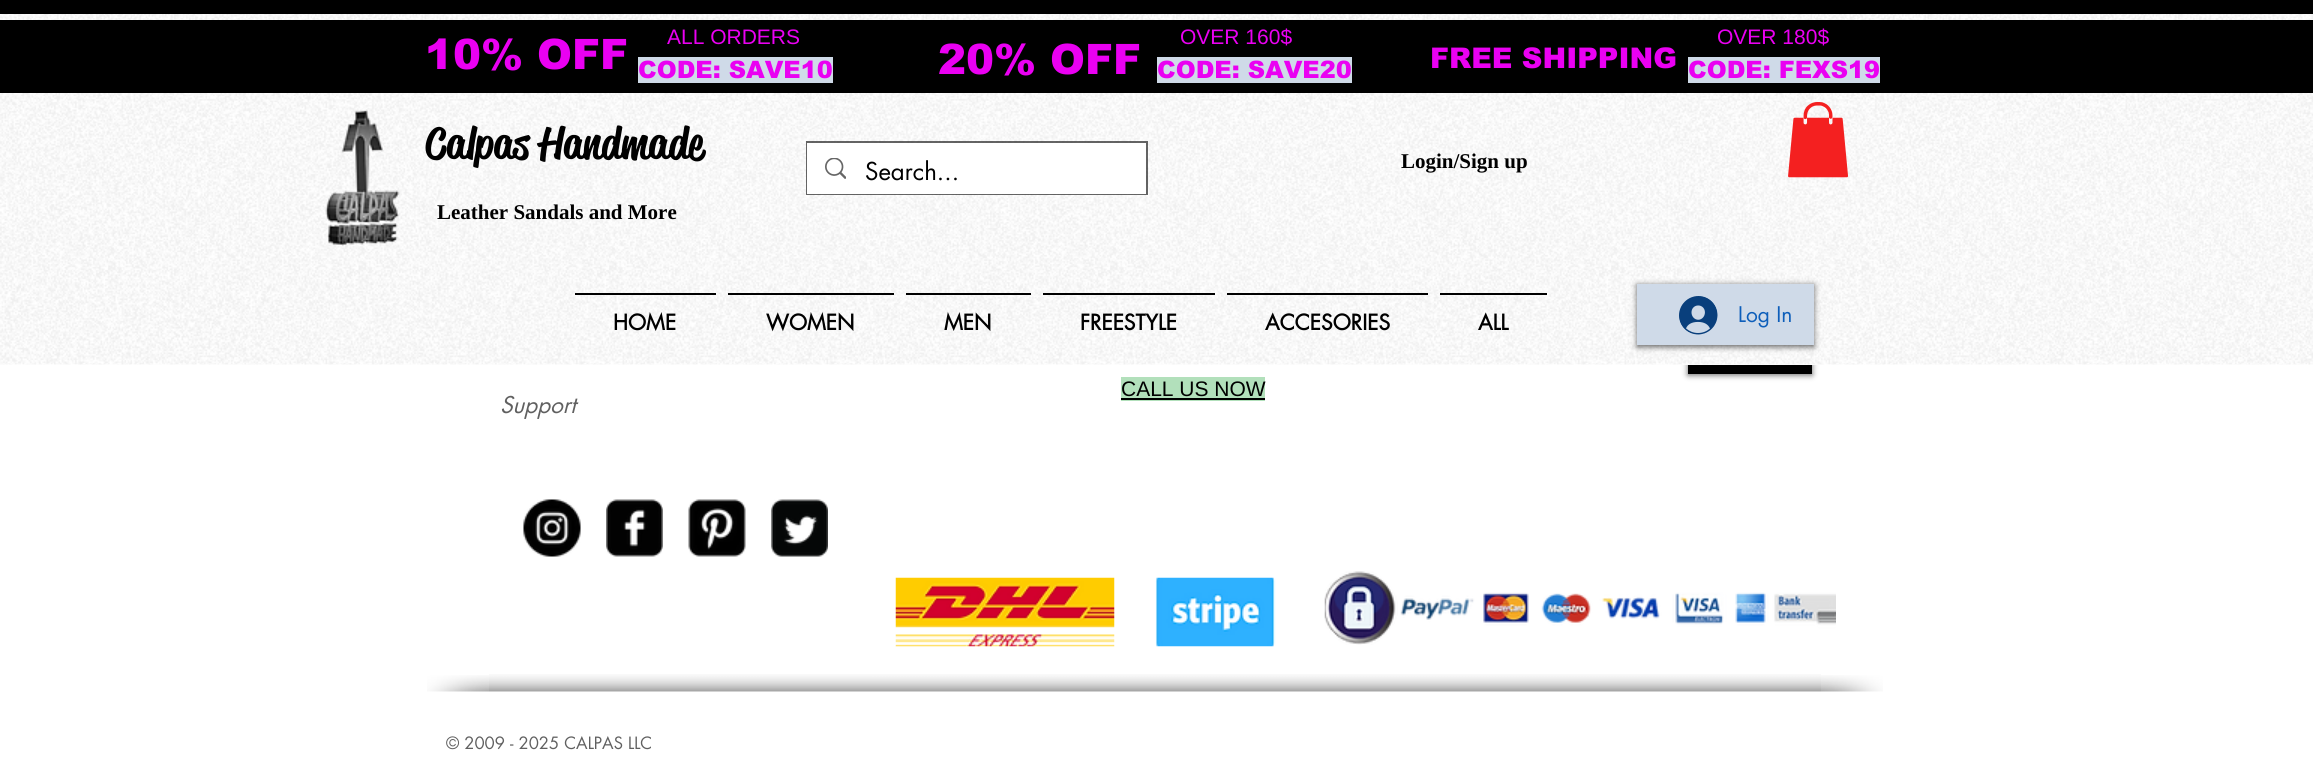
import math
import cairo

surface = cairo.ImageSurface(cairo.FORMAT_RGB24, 2313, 774)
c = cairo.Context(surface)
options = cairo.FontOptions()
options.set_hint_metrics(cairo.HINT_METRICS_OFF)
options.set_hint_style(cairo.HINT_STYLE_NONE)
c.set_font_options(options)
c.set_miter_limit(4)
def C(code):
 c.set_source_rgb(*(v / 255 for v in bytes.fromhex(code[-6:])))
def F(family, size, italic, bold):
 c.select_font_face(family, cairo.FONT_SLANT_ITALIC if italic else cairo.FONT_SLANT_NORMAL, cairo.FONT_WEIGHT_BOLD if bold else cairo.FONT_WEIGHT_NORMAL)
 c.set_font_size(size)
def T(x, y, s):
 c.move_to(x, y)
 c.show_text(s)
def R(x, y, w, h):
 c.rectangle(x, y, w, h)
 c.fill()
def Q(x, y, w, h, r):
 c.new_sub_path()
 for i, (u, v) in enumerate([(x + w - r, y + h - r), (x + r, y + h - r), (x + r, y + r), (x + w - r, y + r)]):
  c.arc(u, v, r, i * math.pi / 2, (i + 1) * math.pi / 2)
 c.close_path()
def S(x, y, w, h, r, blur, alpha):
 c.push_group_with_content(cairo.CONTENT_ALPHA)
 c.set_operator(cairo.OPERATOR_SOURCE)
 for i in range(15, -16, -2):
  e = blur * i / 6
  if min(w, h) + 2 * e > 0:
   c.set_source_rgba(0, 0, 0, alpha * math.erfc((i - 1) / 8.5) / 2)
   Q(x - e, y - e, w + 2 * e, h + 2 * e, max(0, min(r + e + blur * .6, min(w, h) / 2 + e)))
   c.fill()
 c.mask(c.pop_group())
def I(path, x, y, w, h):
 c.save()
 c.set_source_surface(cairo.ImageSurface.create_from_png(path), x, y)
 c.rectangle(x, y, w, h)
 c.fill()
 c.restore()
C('ffffff')
c.paint()
C('000000')
S(1688,333,124,42,0,3,.6)
C('ffffff')
R(1682,327,136,38)
I('1.png',0,14,2313,351)
C('000000')
R(0,0,2313,14)
R(0,20,2313,73)
F('arial Black',42,0,0)
C('ea00f2')
T(425,69,'10% OFF')
F('Liberation Sans',21,0,0)
T(667,44,'ALL ORDERS')
C('cfdae8')
R(638,57,195,26)
F('arial Black',24,0,0)
C('ea00f2')
T(638,78,'CODE: SAVE10')
F('arial Black',42,0,0)
T(938,74,'20% OFF')
F('Liberation Sans',21,0,0)
T(1180,44,'OVER 160$')
C('cfdae8')
R(1157,57,195,26)
F('arial Black',24,0,0)
C('ea00f2')
T(1157,78,'CODE: SAVE20')
F('arial Black',28.5,0,0)
T(1430,68,'FREE SHIPPING')
F('Liberation Sans',21,0,0)
T(1717,44,'OVER 180$')
C('cfdae8')
R(1688,57,192,26)
F('arial Black',24,0,0)
C('ea00f2')
T(1688,78,'CODE: FEXS19')
I('2.png',325,109,75,138)
F('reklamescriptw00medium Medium',43.5,0,0)
C('000000')
T(425,158,'Calpas Handmade')
c.rectangle(807,142,340,52)
c.set_source_rgba(0,0,0,0.6)
c.stroke()
C('ffffff')
R(807,143,339,51)
I('3.png',825,158,21,21)
F('futura',24,0,0)
C('000000')
T(865,180,'Search...')
F('Liberation Serif',21,0,1)
T(1401,168,'Login/Sign up')
I('4.png',1788,102,60,76)
T(437,219,'Leather Sandals and More')
R(575,293,141,2)
F('futura',21,0,1)
T(613,330,'HOME')
R(728,293,166,2)
T(766,330,'WOMEN')
R(906,293,125,2)
T(944,330,'MEN')
R(1043,293,172,2)
T(1080,330,'FREESTYLE')
R(1227,293,201,2)
T(1265,330,'ACCESORIES')
R(1440,293,107,2)
T(1478,330,'ALL')
C('000000')
S(1637,285,177,62,0,3,.6)
C('cfdae8')
R(1637,284,177,61)
I('5.png',1679,296,39,39)
F('futura',21,0,0)
C('0d5eba')
T(1738,322,'Log In')
C('000000')
R(1688,365,124,9)
C('b2e0bb')
R(1121,377,144,24)
F('Liberation Sans',21,0,0)
C('000000')
T(1121,396,'CALL US NOW')
R(1121,398,144,2)
F('futura',22.5,1,0)
C('606060')
T(500,413,'Support')
I('6.png',523,499,58,58)
I('7.png',606,499,57,58)
I('8.png',688,499,58,58)
I('9.png',771,499,57,58)
I('10.png',895,577,220,70)
I('11.png',1155,577,121,70)
I('12.png',1324,571,512,74)
I('13.png',489,674,1332,18)
I('14.png',427,675,62,17)
I('15.png',1821,675,62,17)
F('futura',16.5,0,0)
T(446,749,'© 2009 - 2025 CALPAS LLC')
surface.write_to_png('o.png')
